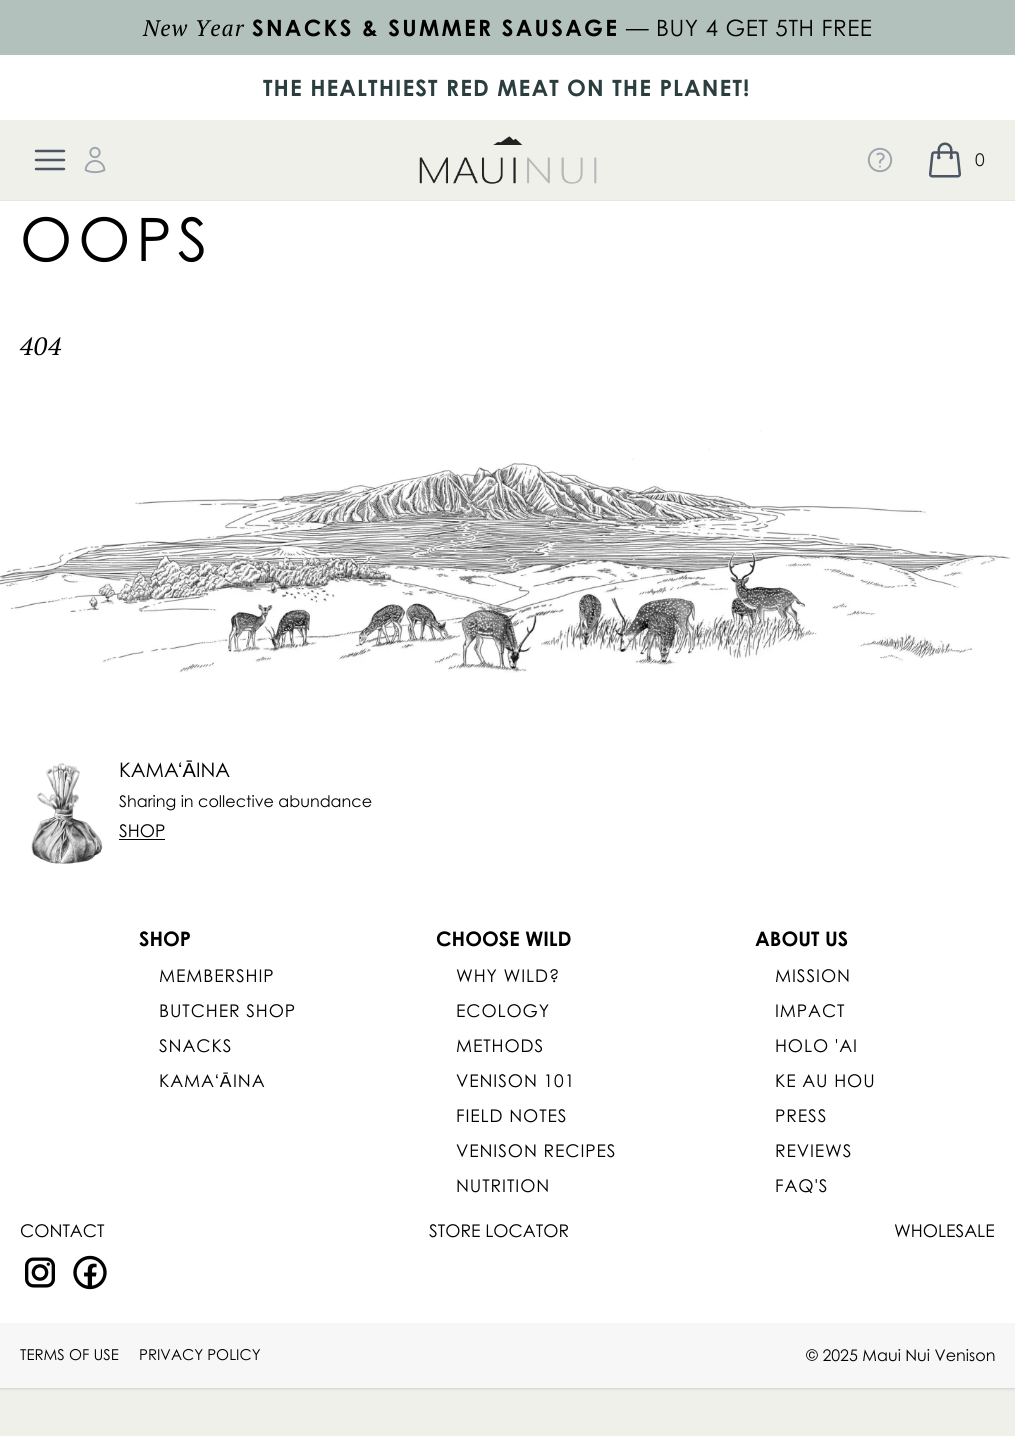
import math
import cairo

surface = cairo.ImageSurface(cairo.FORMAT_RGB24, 1015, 1436)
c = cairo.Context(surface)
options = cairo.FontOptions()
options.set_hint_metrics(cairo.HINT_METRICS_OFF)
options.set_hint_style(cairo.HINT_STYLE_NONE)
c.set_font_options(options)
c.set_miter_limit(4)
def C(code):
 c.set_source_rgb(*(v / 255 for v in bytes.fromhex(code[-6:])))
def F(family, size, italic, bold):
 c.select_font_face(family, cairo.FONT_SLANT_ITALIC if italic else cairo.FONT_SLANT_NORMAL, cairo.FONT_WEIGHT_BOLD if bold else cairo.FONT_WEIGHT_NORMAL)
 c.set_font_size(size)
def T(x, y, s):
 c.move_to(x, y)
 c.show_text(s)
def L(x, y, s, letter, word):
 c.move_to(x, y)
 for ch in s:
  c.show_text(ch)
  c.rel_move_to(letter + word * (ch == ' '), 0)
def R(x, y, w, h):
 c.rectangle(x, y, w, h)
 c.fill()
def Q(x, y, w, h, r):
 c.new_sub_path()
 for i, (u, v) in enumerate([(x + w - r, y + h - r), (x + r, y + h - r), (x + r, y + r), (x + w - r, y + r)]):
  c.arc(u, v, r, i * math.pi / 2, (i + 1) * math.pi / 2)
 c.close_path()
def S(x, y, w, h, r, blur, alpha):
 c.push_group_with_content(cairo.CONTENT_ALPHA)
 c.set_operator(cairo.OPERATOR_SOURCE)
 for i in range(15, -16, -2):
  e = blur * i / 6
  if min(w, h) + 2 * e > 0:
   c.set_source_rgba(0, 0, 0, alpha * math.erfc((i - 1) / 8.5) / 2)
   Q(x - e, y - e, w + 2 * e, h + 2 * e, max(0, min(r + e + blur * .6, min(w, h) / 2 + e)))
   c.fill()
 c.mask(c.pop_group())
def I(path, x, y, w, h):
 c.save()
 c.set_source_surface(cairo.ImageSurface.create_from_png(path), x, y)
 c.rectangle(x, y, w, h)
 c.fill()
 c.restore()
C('f0f0eb')
c.paint()
C('000000')
S(1,3,1013,1385,0,1,.1)
S(0,1,1015,1388,0,2,.1)
C('ffffff')
R(0,55,1015,1268)
C('b3c1bc')
R(0,0,1015,55)
F('PT Serif',22.5,1,0)
C('000000')
L(143,36,'New Year',1.1,0)
F('Century Gothic',22.5,0,1)
L(252,36,'SNACKS & SUMMER SAUSAGE',2.25,0)
F('Century Gothic',22.5,0,0)
L(626,36,'— BUY 4 GET 5TH FREE',.6,0)
F('Century Gothic',22.5,0,1)
C('2b3d3d')
L(263,96,'THE HEALTHIEST RED MEAT ON THE PLANET!',1.1,0)
C('f0f0eb')
R(0,120,1015,80)
C('e5e7eb')
R(0,200,1015,1)
c.new_path()
c.move_to(36,151)
c.line_to(64,151)
c.move_to(36,160)
c.line_to(64,160)
c.move_to(36,169)
c.line_to(64,169)
C('4b5563')
c.set_line_width(2.5)
c.set_line_cap(cairo.LINE_CAP_ROUND)
c.set_line_join(cairo.LINE_JOIN_ROUND)
c.stroke()
I('1.png',84,146,22,28)
I('2.png',419,136,178,48)
I('3.png',867,147,26,26)
I('4.png',929,142,32,36)
F('Century Gothic',17.5,0,0)
C('191818')
T(975,166,'0')
F('Century Gothic',60,0,0)
C('000000')
L(20,261,'OOPS',6,0)
F('PT Serif',25,1,0)
L(20,355,'404',1,0)
I('5.png',0,430,1011,243)
I('6.png',31,763,72,101)
F('Century Gothic',20,0,0)
T(119,777,'KAMA')
F('Liberation Sans',20,0,0)
T(178,777,'ʻĀ')
F('Century Gothic',20,0,0)
T(196,777,'INA')
F('Century Gothic',16,0,0)
T(119,807,'Sharing in collective abundance')
F('Century Gothic',17.5,0,0)
T(119,837,'SHOP')
R(119,839,46,1)
F('Century Gothic',20,0,1)
T(139,946,'SHOP')
F('Century Gothic',17.5,0,0)
L(159,982,'MEMBERSHIP',.9,0)
L(159,1017,'BUTCHER SHOP',.9,0)
L(159,1052,'SNACKS',.9,0)
L(159,1087,'KAMA',.9,0)
F('Liberation Sans',17.5,0,0)
L(215,1087,'ʻĀ',.9,0)
F('Century Gothic',17.5,0,0)
L(233,1087,'INA',.9,0)
F('Century Gothic',20,0,1)
T(436,946,'CHOOSE WILD')
F('Century Gothic',17.5,0,0)
L(456,982,'WHY WILD?',.9,0)
L(456,1017,'ECOLOGY',.9,0)
L(456,1052,'METHODS',.9,0)
L(456,1087,'VENISON 101',.9,0)
L(456,1122,'FIELD NOTES',.9,0)
L(456,1157,'VENISON RECIPES',.9,0)
L(456,1192,'NUTRITION',.9,0)
F('Century Gothic',20,0,1)
T(755,946,'ABOUT US')
F('Century Gothic',17.5,0,0)
L(775,982,'MISSION',.9,0)
L(775,1017,'IMPACT',.9,0)
L(775,1052,'HOLO \'AI',.9,0)
L(775,1087,'KE AU HOU',.9,0)
L(775,1122,'PRESS',.9,0)
L(775,1157,'REVIEWS',.9,0)
L(775,1192,'FAQ\'S',.9,0)
T(20,1237,'CONTACT')
T(429,1237,'STORE LOCATOR')
T(894,1237,'WHOLESALE')
I('7.png',25,1257,30,31)
I('8.png',73,1255,34,35)
C('f7f7f7')
R(0,1323,1015,65)
F('Century Gothic',15,0,0)
C('000000')
T(20,1360,'TERMS OF USE')
T(139,1360,'PRIVACY POLICY')
F('Century Gothic',16,0,0)
T(806,1361,'© 2025 Maui Nui Venison')
surface.write_to_png('o.png')
